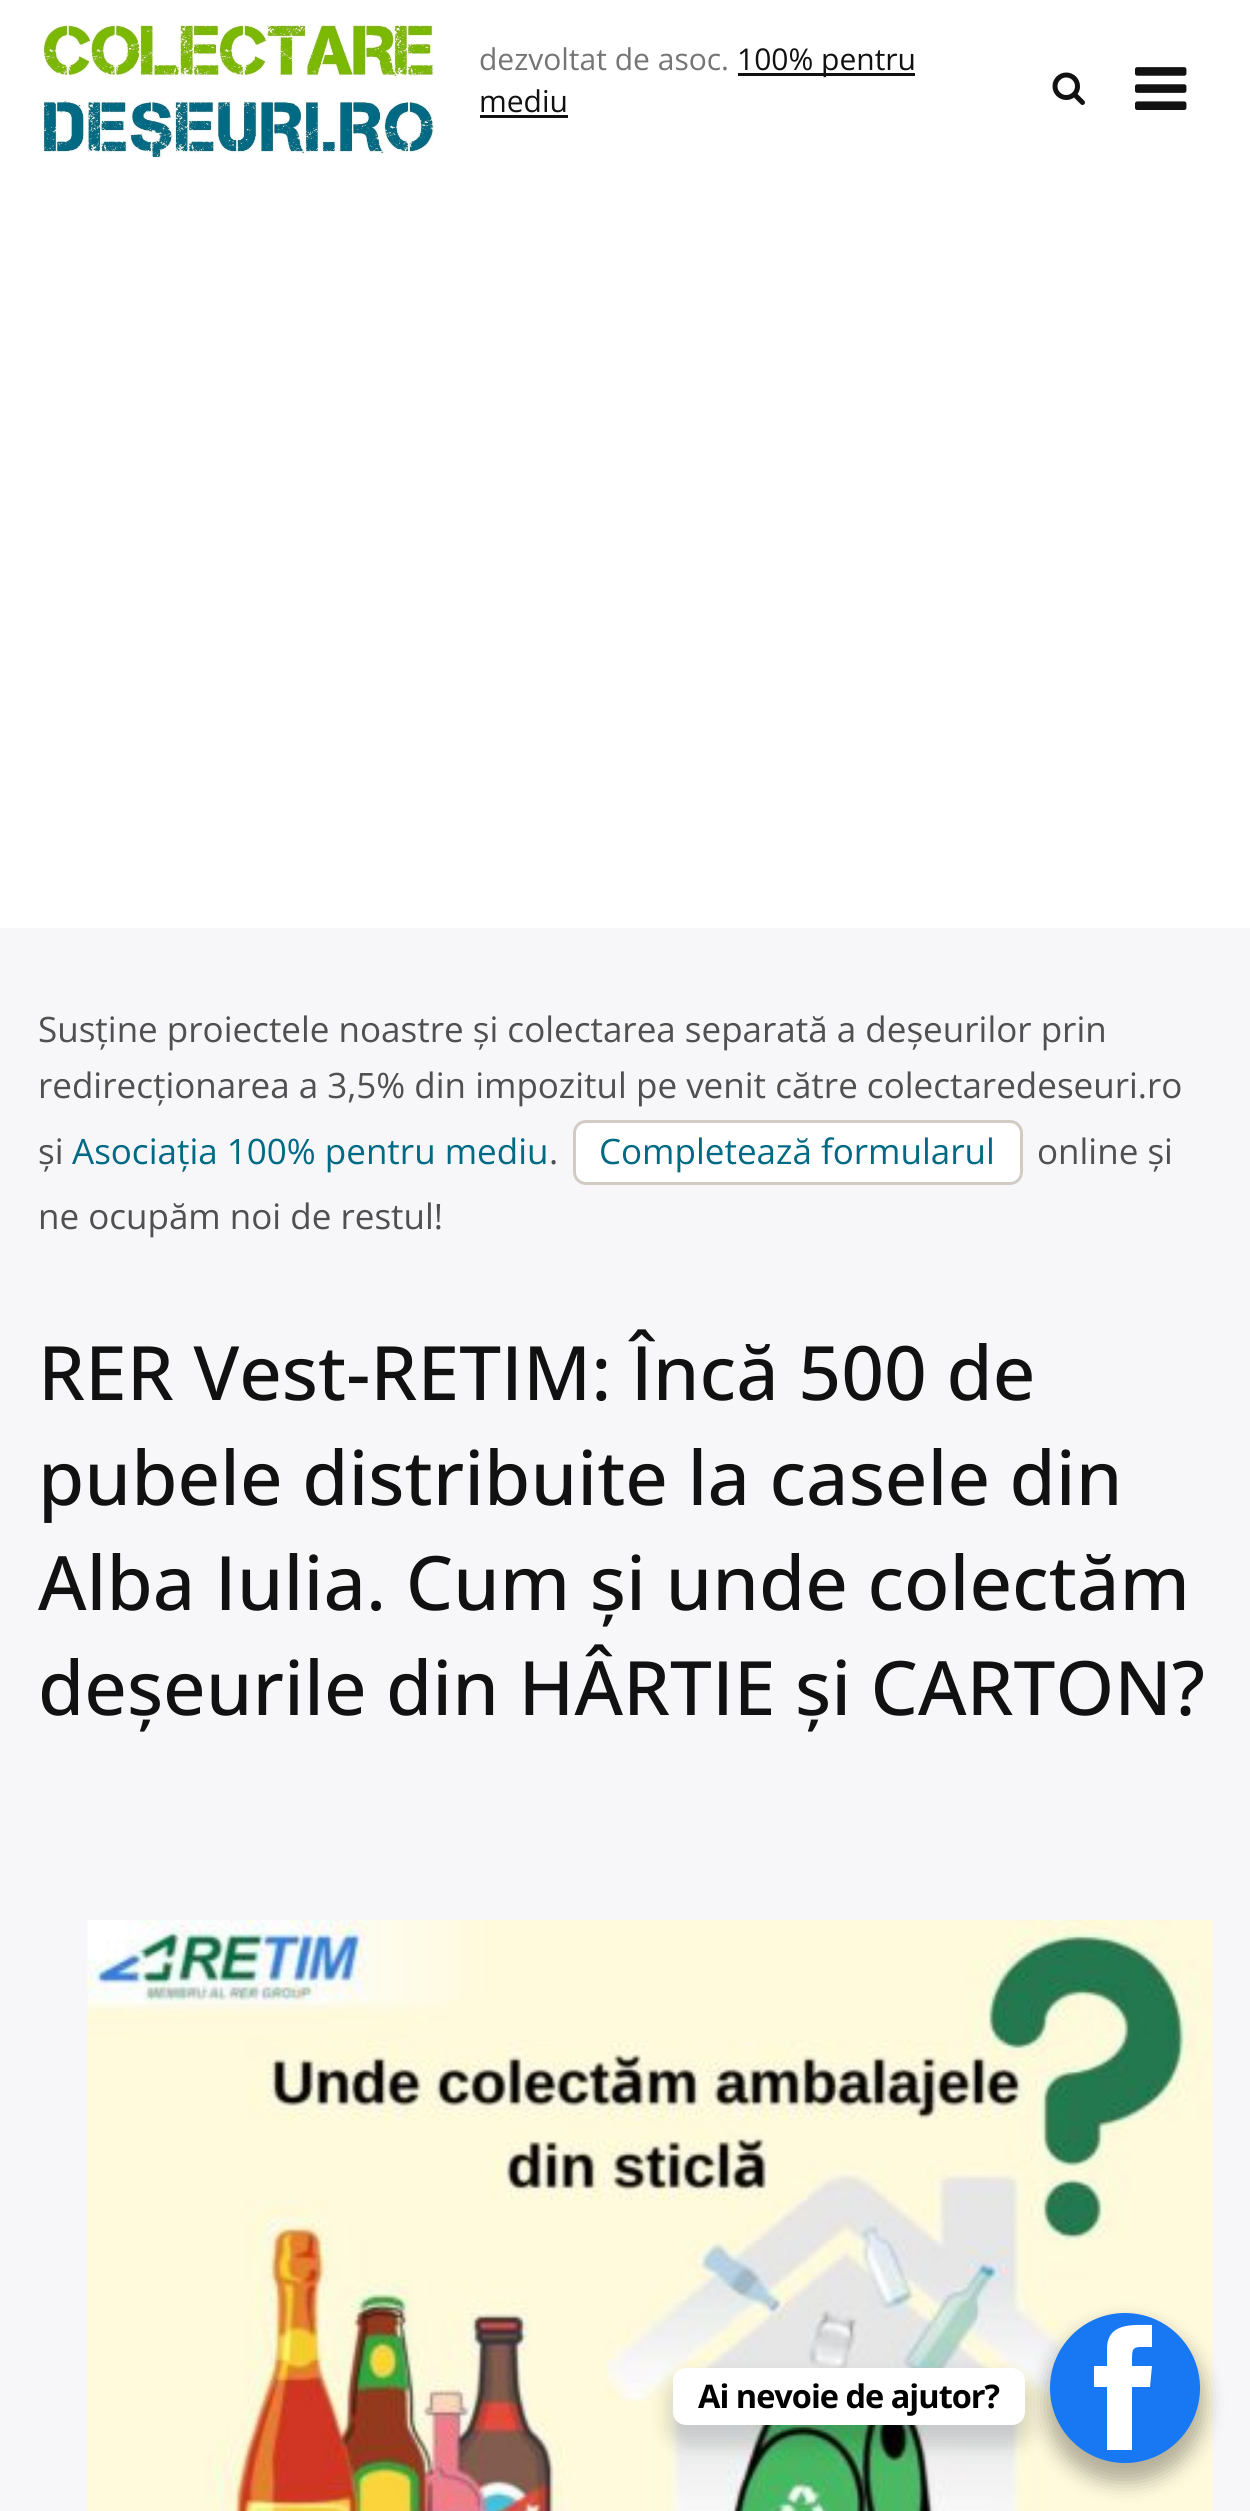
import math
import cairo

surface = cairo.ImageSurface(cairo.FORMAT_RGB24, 1250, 2511)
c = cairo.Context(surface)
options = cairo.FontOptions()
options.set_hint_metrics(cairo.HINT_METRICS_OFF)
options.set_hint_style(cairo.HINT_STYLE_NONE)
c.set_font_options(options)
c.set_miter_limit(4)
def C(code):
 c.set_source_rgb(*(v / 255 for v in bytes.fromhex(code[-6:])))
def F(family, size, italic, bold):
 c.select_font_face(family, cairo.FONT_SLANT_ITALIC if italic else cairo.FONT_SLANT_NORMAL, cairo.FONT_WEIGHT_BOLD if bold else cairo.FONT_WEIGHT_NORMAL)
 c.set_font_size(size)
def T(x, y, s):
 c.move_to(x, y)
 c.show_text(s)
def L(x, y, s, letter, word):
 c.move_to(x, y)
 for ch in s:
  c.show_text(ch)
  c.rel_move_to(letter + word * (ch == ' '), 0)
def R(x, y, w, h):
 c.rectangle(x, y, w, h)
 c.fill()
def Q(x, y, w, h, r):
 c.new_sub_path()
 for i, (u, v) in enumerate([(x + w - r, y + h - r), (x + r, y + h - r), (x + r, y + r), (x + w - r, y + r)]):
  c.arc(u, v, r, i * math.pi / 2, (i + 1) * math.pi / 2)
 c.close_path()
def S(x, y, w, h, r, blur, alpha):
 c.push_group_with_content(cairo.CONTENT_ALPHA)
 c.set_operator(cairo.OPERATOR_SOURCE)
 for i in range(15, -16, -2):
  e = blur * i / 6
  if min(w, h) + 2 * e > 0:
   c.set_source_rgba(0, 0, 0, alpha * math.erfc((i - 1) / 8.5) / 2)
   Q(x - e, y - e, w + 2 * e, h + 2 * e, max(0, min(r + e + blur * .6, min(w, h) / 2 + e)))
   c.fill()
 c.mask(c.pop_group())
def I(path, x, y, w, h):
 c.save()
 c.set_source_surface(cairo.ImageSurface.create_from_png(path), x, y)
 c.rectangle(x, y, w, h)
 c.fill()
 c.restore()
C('f7f7f9')
c.paint()
C('ffffff')
R(0,0,1250,928)
I('1.png',42,23,392,136)
F('Open Sans',30,0,0)
C('757575')
T(479,70,'dezvoltat de asoc.')
C('111111')
R(738,73,177,3)
T(737,70,'100% pentru')
T(479,112,'mediu')
R(480,115,88,3)
I('2.png',1052,72,33,33)
I('3.png',1135,67,52,43)
F('Open Sans',35,0,0)
C('505050')
T(38,1042,'Susține proiectele noastre și colectarea separată a deșeurilor prin')
T(38,1098,'redirecționarea a 3,5% din impozitul pe venit către colectaredeseuri.ro')
T(38,1164,'și')
C('006a84')
T(72,1164,'Asociația 100% pentru mediu')
C('505050')
T(549,1164,'.')
C('ffffff')
Q(574.5,1121.5,447,62,11.5)
c.fill_preserve()
C('d2cbc4')
c.set_line_width(3)
c.stroke()
C('006a84')
T(599,1164,'Completează formularul')
C('505050')
T(1037,1164,'online și')
T(38,1229,'ne ocupăm noi de restul!')
F('Open Sans Medium',75,0,0)
C('111111')
T(38,1400,'RER Vest-RETIM: Încă 500 de')
T(38,1505,'pubele distribuite la casele din')
T(38,1610,'Alba Iulia. Cum și unde colectăm')
T(38,1715,'deșeurile din HÂRTIE și CARTON?')
I('4.png',87,1920,1126,591)
C('000000')
S(1045,2323,160,160,80,10,.3)
C('1877f2')
c.arc(1125,2388,75,0,2 * math.pi)
c.fill()
C('000000')
S(668,2378,362,67,18,10,.15)
C('ffffff')
Q(673,2368,352,57,13)
c.fill()
F('Open Sans',32.5,0,1)
C('000000')
L(698,2408,'Ai nevoie de ajutor?',-1,0)
C('ffffff')
c.new_path()
c.move_to(1107,2349)
c.line_to(1107,2366)
c.line_to(1094,2366)
c.line_to(1094,2387)
c.line_to(1107,2387)
c.line_to(1107,2450)
c.line_to(1132,2450)
c.line_to(1132,2387)
c.line_to(1150,2387)
c.line_to(1152,2366)
c.line_to(1132,2366)
c.curve_to(1132,2345,1131,2347,1152,2347)
c.line_to(1152,2325)
c.curve_to(1133,2325,1107,2322,1107,2349)
c.close_path()
c.fill()
surface.write_to_png('o.png')
